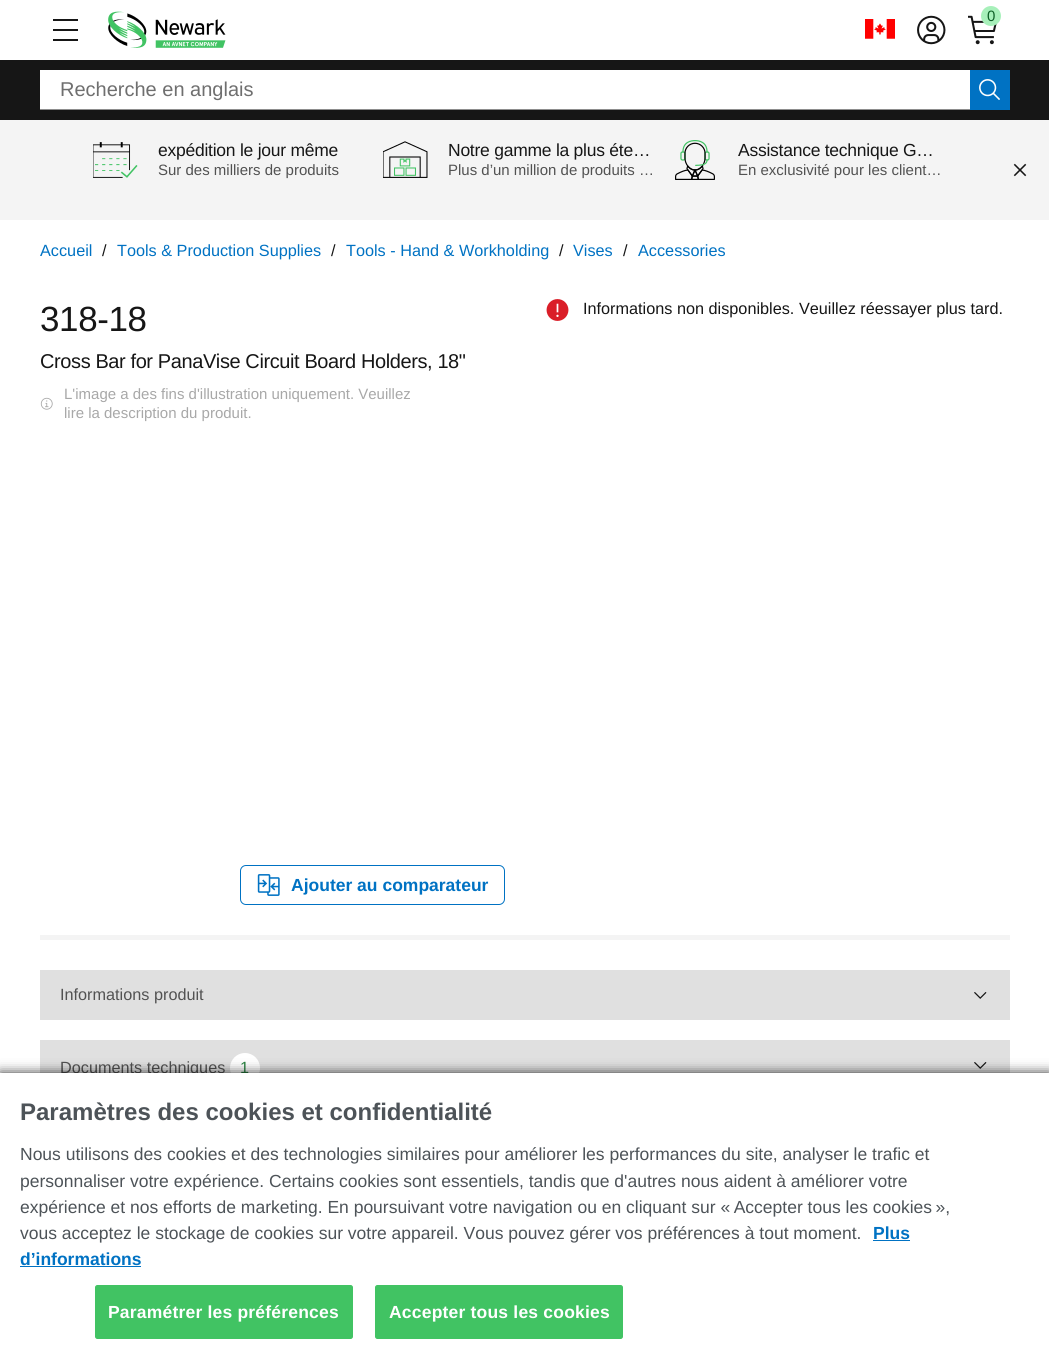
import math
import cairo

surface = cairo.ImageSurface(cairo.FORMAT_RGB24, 1049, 1358)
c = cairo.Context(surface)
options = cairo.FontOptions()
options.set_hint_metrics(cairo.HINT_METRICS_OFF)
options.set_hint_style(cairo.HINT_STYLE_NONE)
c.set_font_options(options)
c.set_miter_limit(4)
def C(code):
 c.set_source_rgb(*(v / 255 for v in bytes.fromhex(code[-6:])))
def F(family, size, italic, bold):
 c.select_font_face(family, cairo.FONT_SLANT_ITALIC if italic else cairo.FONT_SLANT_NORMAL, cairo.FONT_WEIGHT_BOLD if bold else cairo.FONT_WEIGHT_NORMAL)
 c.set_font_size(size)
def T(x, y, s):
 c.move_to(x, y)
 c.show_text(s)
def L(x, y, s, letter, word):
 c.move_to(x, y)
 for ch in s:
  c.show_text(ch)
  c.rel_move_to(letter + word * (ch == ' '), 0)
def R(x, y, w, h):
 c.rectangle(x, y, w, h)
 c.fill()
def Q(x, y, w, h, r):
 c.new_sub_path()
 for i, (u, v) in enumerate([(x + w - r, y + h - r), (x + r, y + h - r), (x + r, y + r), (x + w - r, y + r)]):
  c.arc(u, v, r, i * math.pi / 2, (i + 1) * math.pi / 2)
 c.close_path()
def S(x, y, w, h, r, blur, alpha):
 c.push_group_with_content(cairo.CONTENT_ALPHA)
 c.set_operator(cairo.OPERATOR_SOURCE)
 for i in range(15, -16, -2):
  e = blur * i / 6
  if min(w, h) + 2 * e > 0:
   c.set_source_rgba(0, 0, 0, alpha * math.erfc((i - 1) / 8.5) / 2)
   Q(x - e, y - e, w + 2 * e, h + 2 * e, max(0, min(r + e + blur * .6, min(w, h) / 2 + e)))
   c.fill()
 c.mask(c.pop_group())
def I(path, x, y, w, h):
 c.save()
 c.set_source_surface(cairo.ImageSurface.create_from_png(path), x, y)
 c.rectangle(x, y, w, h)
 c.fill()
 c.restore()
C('ffffff')
c.paint()
C('161616')
R(53,19,25,2)
R(53,29,25,2)
R(53,39,25,2)
I('1.png',108,11,118,37)
I('2.png',865,19,30,20)
I('3.png',917,15,29,30)
I('4.png',968,15,29,30)
C('a7f0ba')
c.arc(991,16,10,0,2 * math.pi)
c.fill()
F('Liberation Sans',15,0,0)
C('0e6027')
T(987,21,'0')
C('161616')
R(0,60,1049,60)
C('ffffff')
R(40,70,930,39)
C('8d8d8d')
R(40,109,930,1)
F('Liberation Sans',20,0,0)
C('6f6f6f')
T(60,96,'Recherche en anglais')
C('0072c3')
R(970,70,40,40)
I('5.png',979,79,21,21)
C('f4f4f4')
R(0,120,1049,100)
I('6.png',93,142,45,36)
F('Liberation Sans',17.5,0,0)
C('161616')
L(158,156,'expédition le jour même',-.25,0)
F('Liberation Sans',15,0,0)
C('525252')
T(158,175,'Sur des milliers de produits')
I('7.png',383,141,45,37)
F('Liberation Sans',17.5,0,0)
C('161616')
L(448,156,'Notre gamme la plus éte…',-.25,0)
F('Liberation Sans',15,0,0)
C('525252')
T(448,175,'Plus d’un million de produits …')
I('8.png',675,140,40,40)
F('Liberation Sans',17.5,0,0)
C('161616')
L(738,156,'Assistance technique G…',-.25,0)
F('Liberation Sans',15,0,0)
C('525252')
T(738,175,'En exclusivité pour les client…')
I('9.png',1013,163,14,14)
F('Liberation Sans',16.25,0,0)
C('0072c3')
T(40,256,'Accueil')
C('161616')
T(102,256,'/')
C('0072c3')
T(117,256,'Tools & Production Supplies')
C('161616')
T(331,256,'/')
C('0072c3')
T(346,256,'Tools - Hand & Workholding')
C('161616')
T(559,256,'/')
C('0072c3')
T(573,256,'Vises')
C('161616')
T(623,256,'/')
C('0072c3')
T(638,256,'Accessories')
F('Liberation Sans',35,0,0)
C('161616')
L(40,331,'318-18',-.4,0)
F('Liberation Sans',20,0,0)
L(40,368,'Cross Bar for PanaVise Circuit Board Holders, 18"',-.4,0)
I('10.png',40,397,13,13)
F('Liberation Sans',15,0,0)
C('a8a8a8')
T(64,399,'L\'image a des fins d\'illustration uniquement. Veuillez')
T(64,418,'lire la description du produit.')
Q(240.5,865.5,264,39,5.5)
C('0072c3')
c.set_line_width(1)
c.stroke()
I('11.png',257,874,23,22)
F('Liberation Sans',17.5,0,1)
T(291,891,'Ajouter au comparateur')
I('12.png',546,299,23,22)
F('Liberation Sans',16.25,0,0)
C('161616')
T(583,314,'Informations non disponibles. Veuillez réessayer plus tard.')
C('f4f4f4')
R(40,935,970,5)
C('e0e0e0')
R(40,970,970,50)
C('525252')
T(60,1000,'Informations produit')
I('13.png',974,992,13,7)
C('e0e0e0')
R(40,1040,970,33)
C('525252')
T(60,1073,'Documents techniques')
C('ffffff')
c.new_path()
c.arc(245,1068,15,0,2 * math.pi)
c.fill()
C('2a8442')
T(240,1073,'1')
I('13.png',974,1062,13,7)
C('000000')
S(0,1073,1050,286,0,6,.8)
C('ffffff')
R(0,1073,1049,285)
F('Liberation Sans',24,0,1)
C('4d5358')
T(20,1120,'Paramètres des cookies et confidentialité')
F('Liberation Sans',17.5,0,0)
T(20,1160,'Nous utilisons des cookies et des technologies similaires pour améliorer les performances du site, analyser le trafic et')
T(20,1187,'personnaliser votre expérience. Certains cookies sont essentiels, tandis que d\'autres nous aident à améliorer votre')
T(20,1213,'expérience et nos efforts de marketing. En poursuivant votre navigation ou en cliquant sur « Accepter tous les cookies »,')
T(20,1239,'vous acceptez le stockage de cookies sur votre appareil. Vous pouvez gérer vos préférences à tout moment.')
F('Liberation Sans',17.5,0,1)
C('0072c3')
T(873,1239,'Plus')
R(873,1240,37,1)
T(20,1265,'d’informations')
R(20,1266,121,1)
C('41c363')
Q(95.5,1285.5,257,53,2)
c.fill_preserve()
c.stroke()
C('ffffff')
L(108,1318,'Paramétrer les préférences',.2,0)
C('41c363')
Q(375.5,1285.5,247,53,2)
c.fill_preserve()
c.stroke()
C('ffffff')
L(389,1318,'Accepter tous les cookies',.2,0)
surface.write_to_png('o.png')
